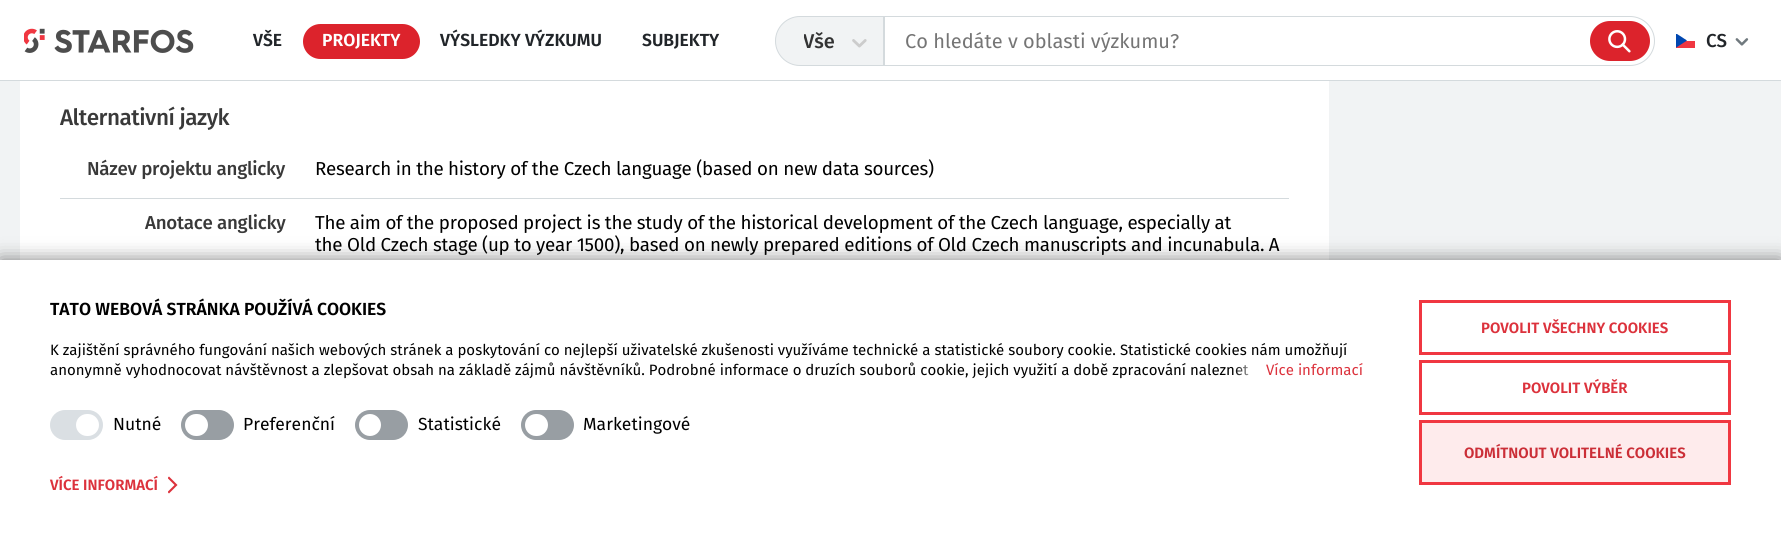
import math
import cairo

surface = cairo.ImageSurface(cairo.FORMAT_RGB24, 1781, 539)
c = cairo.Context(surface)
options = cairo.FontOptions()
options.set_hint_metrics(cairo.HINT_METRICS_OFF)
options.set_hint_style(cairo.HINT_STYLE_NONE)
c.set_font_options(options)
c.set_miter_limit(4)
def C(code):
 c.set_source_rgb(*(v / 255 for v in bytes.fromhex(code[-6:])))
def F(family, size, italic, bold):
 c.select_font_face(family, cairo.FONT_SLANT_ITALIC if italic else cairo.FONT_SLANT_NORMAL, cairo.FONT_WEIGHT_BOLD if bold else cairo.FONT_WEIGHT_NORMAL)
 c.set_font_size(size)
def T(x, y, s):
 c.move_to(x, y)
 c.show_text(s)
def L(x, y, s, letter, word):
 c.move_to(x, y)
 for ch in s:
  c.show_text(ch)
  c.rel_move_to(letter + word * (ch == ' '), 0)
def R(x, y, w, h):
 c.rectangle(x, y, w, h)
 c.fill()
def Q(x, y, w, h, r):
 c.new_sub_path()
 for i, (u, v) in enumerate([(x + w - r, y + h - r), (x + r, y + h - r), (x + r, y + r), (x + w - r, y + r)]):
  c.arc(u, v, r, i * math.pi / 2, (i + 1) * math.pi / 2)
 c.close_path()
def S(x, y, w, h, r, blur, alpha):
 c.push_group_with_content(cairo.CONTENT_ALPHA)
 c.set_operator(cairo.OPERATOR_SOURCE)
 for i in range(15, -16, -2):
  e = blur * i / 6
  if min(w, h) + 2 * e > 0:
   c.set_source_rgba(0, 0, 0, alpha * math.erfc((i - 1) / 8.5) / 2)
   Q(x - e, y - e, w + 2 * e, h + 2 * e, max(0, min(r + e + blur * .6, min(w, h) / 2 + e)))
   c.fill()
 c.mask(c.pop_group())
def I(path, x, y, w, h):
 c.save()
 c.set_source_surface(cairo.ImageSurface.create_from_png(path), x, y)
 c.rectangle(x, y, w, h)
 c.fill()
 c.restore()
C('f1f3f4')
c.paint()
C('ffffff')
R(0,0,1781,80)
C('d4dadd')
R(0,80,1781,1)
I('1.png',24,28,170,25)
F('Fira Sans SemiBold',17.5,0,0)
C('212529')
T(253,46,'VŠE')
C('dc232c')
Q(303,24,117,35,17.5)
c.fill()
C('ffffff')
T(322,46,'PROJEKTY')
C('212529')
T(440,46,'VÝSLEDKY VÝZKUMU')
T(642,46,'SUBJEKTY')
C('f1f3f4')
c.new_path()
c.move_to(800,16.5)
c.line_to(883.5,16.5)
c.line_to(883.5,65.5)
c.line_to(800,65.5)
c.curve_to(786.5,65.5,775.5,54.5,775.5,41)
c.curve_to(775.5,27.5,786.5,16.5,800,16.5)
c.close_path()
c.fill_preserve()
C('d4dadd')
c.set_line_width(1)
c.stroke()
c.save()
c.rectangle(804,28,31,30)
c.clip()
F('Fira Sans Medium',20,0,0)
C('333333')
T(803,48,'Vše')
c.restore()
I('2.png',852,39,15,9)
c.new_path()
c.move_to(884.5,16.5)
c.line_to(1630,16.5)
c.curve_to(1643.5,16.5,1654.5,27.5,1654.5,41)
c.curve_to(1654.5,54.5,1643.5,65.5,1630,65.5)
c.line_to(884.5,65.5)
c.close_path()
c.stroke()
F('Fira Sans',20,0,0)
C('757575')
T(905,48,'Co hledáte v oblasti výzkumu?')
C('dc232c')
Q(1590,21,60,40,20)
c.fill()
I('3.png',1608,30,23,23)
C('f03741')
R(1676,41,19,7)
c.save()
c.rectangle(1676,34,19,14)
c.clip()
C('0047b0')
c.set_fill_rule(cairo.FILL_RULE_EVEN_ODD)
c.new_path()
c.move_to(1675.5,33)
c.line_to(1687,40.5)
c.line_to(1675.5,48)
c.close_path()
c.fill()
c.restore()
F('Fira Sans Medium',18.75,0,0)
C('212529')
L(1706,47,'CS',-.25,0)
I('4.png',1735,38,14,8)
C('ffffff')
R(20,81,1309,179)
F('Fira Sans Medium',22.5,0,0)
C('393939')
L(60,125,'Alternativní jazyk',-.5,0)
F('Fira Sans Medium',18.75,0,0)
L(87,175,'Název projektu anglicky',-.25,0)
F('Fira Sans',18.75,0,0)
C('000000')
L(315,175,'Research in the history of the Czech language (based on new data sources)',-.25,0)
C('d4dadd')
R(60,198,1229,1)
F('Fira Sans Medium',18.75,0,0)
C('393939')
L(145,229,'Anotace anglicky',-.25,0)
F('Fira Sans',18.75,0,0)
C('000000')
L(315,229,'The aim of the proposed project is the study of the historical development of the Czech language, especially at',-.25,0)
L(315,251,'the Old Czech stage (up to year 1500), based on newly prepared editions of Old Czech manuscripts and incunabula. A',-.25,0)
C('000000')
S(0,260,1781,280,0,9.5,.5)
C('ffffff')
R(0,260,1781,279)
F('Fira Sans SemiBold',17.5,0,0)
C('000000')
T(50,315,'TATO WEBOVÁ STRÁNKA POUŽÍVÁ COOKIES')
F('Fira Sans',15,0,0)
T(50,355,'K zajištění správného fungování našich webových stránek a poskytování co nejlepší uživatelské zkušenosti využíváme technické a statistické soubory cookie. Statistické cookies nám umožňují')
T(50,375,'anonymně vyhodnocovat návštěvnost a zlepšovat obsah na základě zájmů návštěvníků. Podrobné informace o druzích souborů cookie, jejich využití a době zpracování naleznet')
gradient = cairo.LinearGradient(1234,370,1259,370)
gradient.add_color_stop_rgba(0,1,1,1,0)
gradient.add_color_stop_rgba(1,1,1,1,1)
c.set_source(gradient)
R(1235,365,14,11)
C('dc323c')
T(1266,375,'Více informací')
C('dadfe3')
Q(50,410,53,30,15)
c.fill()
C('ffffff')
Q(76,414,23,22,11)
c.fill()
F('Fira Sans',17.5,0,0)
C('000000')
T(113,430,'Nutné')
C('989ea3')
Q(181,410,53,30,15)
c.fill()
C('ffffff')
Q(185,414,23,22,11)
c.fill()
C('000000')
T(243,430,'Preferenční')
C('989ea3')
Q(355,410,53,30,15)
c.fill()
C('ffffff')
c.arc(370,425,11,0,2 * math.pi)
c.fill()
C('000000')
T(418,430,'Statistické')
C('989ea3')
Q(521,410,53,30,15)
c.fill()
C('ffffff')
Q(525,414,23,22,11)
c.fill()
C('000000')
T(583,430,'Marketingové')
F('Fira Sans SemiBold',15,0,0)
C('dc323c')
T(50,490,'VÍCE INFORMACÍ')
c.save()
c.rectangle(168,475,10,20)
c.clip()
c.new_path()
c.move_to(169,493.5)
c.line_to(167.5,492)
c.line_to(174.5,485)
c.line_to(167.5,478)
c.line_to(169,476.5)
c.line_to(177.5,485)
c.close_path()
c.fill()
c.restore()
c.rectangle(1420.5,301.5,309,52)
C('f03741')
c.set_line_width(3)
c.stroke()
C('dc323c')
T(1481,333,'POVOLIT VŠECHNY COOKIES')
c.rectangle(1420.5,361.5,309,52)
C('f03741')
c.stroke()
C('dc323c')
T(1522,393,'POVOLIT VÝBĚR')
C('feebec')
c.rectangle(1420.5,421.5,309,62)
c.fill_preserve()
C('f03741')
c.stroke()
C('cb2e37')
T(1464,458,'ODMÍTNOUT VOLITELNÉ COOKIES')
surface.write_to_png('o.png')
